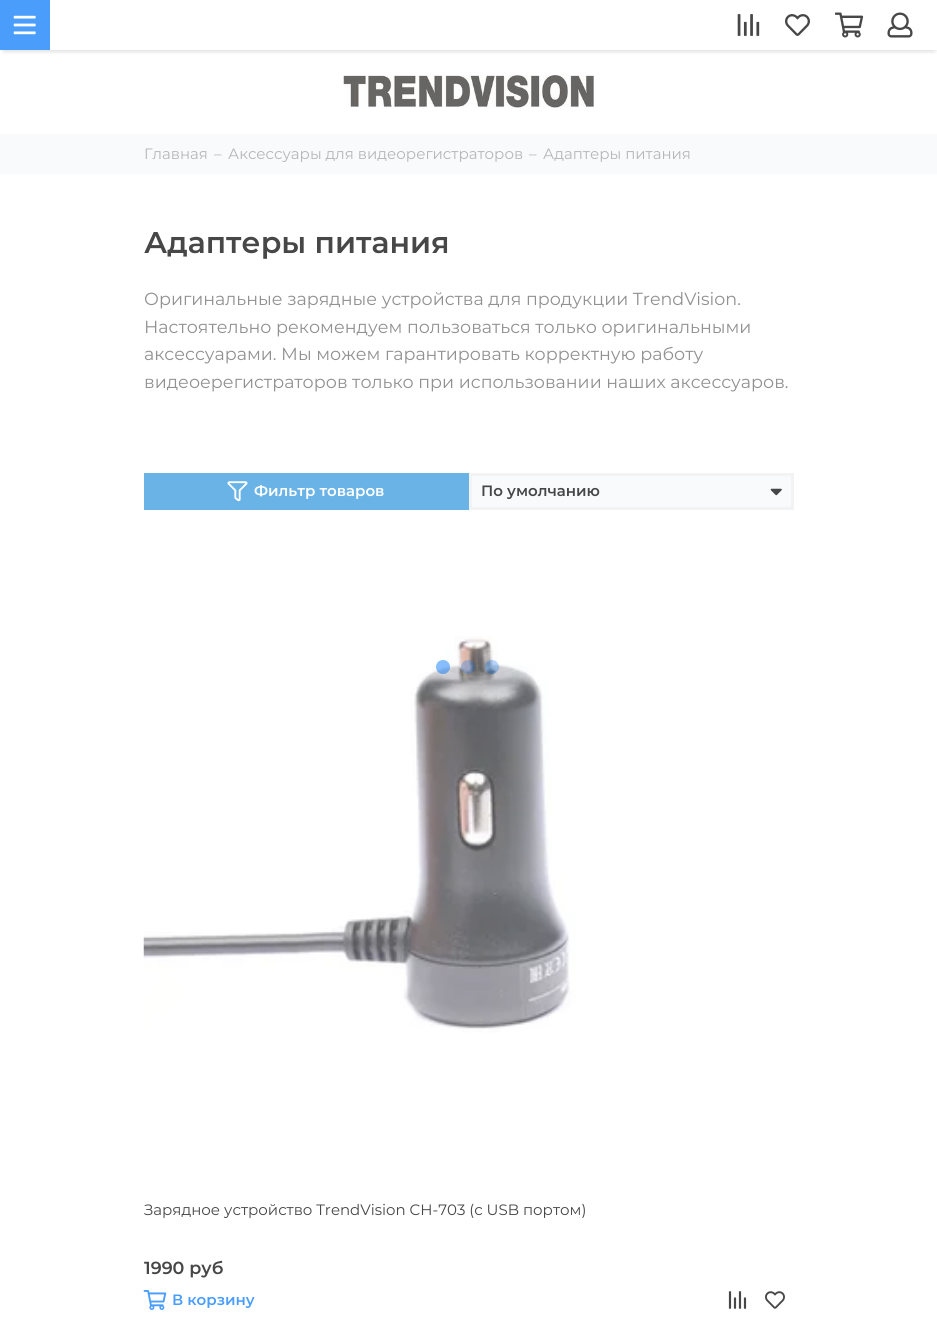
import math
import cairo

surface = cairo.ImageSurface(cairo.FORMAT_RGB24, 937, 1331)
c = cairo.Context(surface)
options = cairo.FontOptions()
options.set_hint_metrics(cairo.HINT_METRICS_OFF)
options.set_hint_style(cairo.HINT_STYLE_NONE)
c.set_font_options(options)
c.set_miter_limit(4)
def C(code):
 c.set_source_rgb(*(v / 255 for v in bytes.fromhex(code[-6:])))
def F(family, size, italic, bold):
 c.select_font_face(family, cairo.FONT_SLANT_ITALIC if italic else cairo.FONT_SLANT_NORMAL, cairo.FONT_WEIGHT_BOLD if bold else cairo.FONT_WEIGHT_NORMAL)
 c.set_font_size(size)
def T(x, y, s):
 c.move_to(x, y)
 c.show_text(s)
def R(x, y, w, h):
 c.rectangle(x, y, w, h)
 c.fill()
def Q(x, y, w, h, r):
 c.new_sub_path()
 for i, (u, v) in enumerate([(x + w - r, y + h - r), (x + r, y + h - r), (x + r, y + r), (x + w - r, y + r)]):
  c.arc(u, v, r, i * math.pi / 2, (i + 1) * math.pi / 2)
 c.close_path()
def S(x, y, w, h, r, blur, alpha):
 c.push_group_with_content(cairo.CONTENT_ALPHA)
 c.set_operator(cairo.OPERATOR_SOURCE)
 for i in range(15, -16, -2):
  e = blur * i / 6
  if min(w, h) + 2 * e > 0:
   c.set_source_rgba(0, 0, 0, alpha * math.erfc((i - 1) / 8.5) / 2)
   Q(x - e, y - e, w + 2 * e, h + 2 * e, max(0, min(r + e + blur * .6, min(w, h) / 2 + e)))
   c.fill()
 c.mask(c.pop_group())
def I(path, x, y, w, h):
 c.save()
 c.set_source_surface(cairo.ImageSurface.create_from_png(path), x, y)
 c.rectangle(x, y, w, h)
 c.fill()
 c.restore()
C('ffffff')
c.paint()
c.save()
c.rectangle(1,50,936,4)
c.clip()
C('474747')
S(4,8,930,42,0,3,.3)
c.restore()
C('4a9dfb')
R(0,0,50,50)
I('1.png',13,15,23,20)
I('2.png',737,14,23,22)
I('3.png',785,14,25,22)
I('4.png',835,12,29,26)
I('5.png',887,12,26,26)
I('6.png',343,75,251,33)
C('f9fafb')
R(0,134,937,40)
F('Montserrat',15,0,0)
C('b6b6b6')
T(144,159,'Главная')
T(214,159,'–')
T(228,159,'Аксессуары для видеорегистраторов')
T(529,159,'–')
T(543,159,'Адаптеры питания')
F('Montserrat SemiBold',30,0,0)
C('474747')
T(144,253,'Адаптеры питания')
F('Montserrat',17.5,0,0)
C('919191')
T(144,305,'Оригинальные зарядные устройства для продукции TrendVision.')
T(144,333,'Настоятельно рекомендуем пользоваться только оригинальными')
T(144,360,'аксессуарами. Мы можем гарантировать корректную работу')
T(144,388,'видеоерегистраторов только при использовании наших аксессуаров.')
C('6ab3e7')
R(144,473,325,37)
I('7.png',227,481,21,21)
F('Montserrat SemiBold',15,0,0)
C('ffffff')
T(254,496,'Фильтр товаров')
C('f9fafb')
R(472,476,319,31)
I('8.png',770,488,12,8)
c.rectangle(470.5,474.5,322,34)
C('f3f3f3')
c.set_line_width(3)
c.stroke()
C('474747')
T(481,496,'По умолчанию')
I('9.png',143,636,434,397)
F('Montserrat',15,0,0)
T(144,1215,'Зарядное устройство TrendVision CH-703 (с USB портом)')
F('Montserrat SemiBold',17.5,0,0)
T(144,1274,'1990 руб')
I('10.png',143,1290,24,20)
F('Montserrat SemiBold',15,0,0)
C('4a9dfb')
T(172,1305,'В корзину')
I('11.png',728,1291,19,18)
I('12.png',765,1291,20,18)
c.set_source_rgba(0.016,0.467,0.976,0.28)
c.arc(443,667,7,0,2 * math.pi)
c.fill()
c.arc(443,667,7,0,2 * math.pi)
c.fill()
c.arc(468,667,7,0,2 * math.pi)
c.fill()
c.arc(492,667,7,0,2 * math.pi)
c.fill()
surface.write_to_png('o.png')
